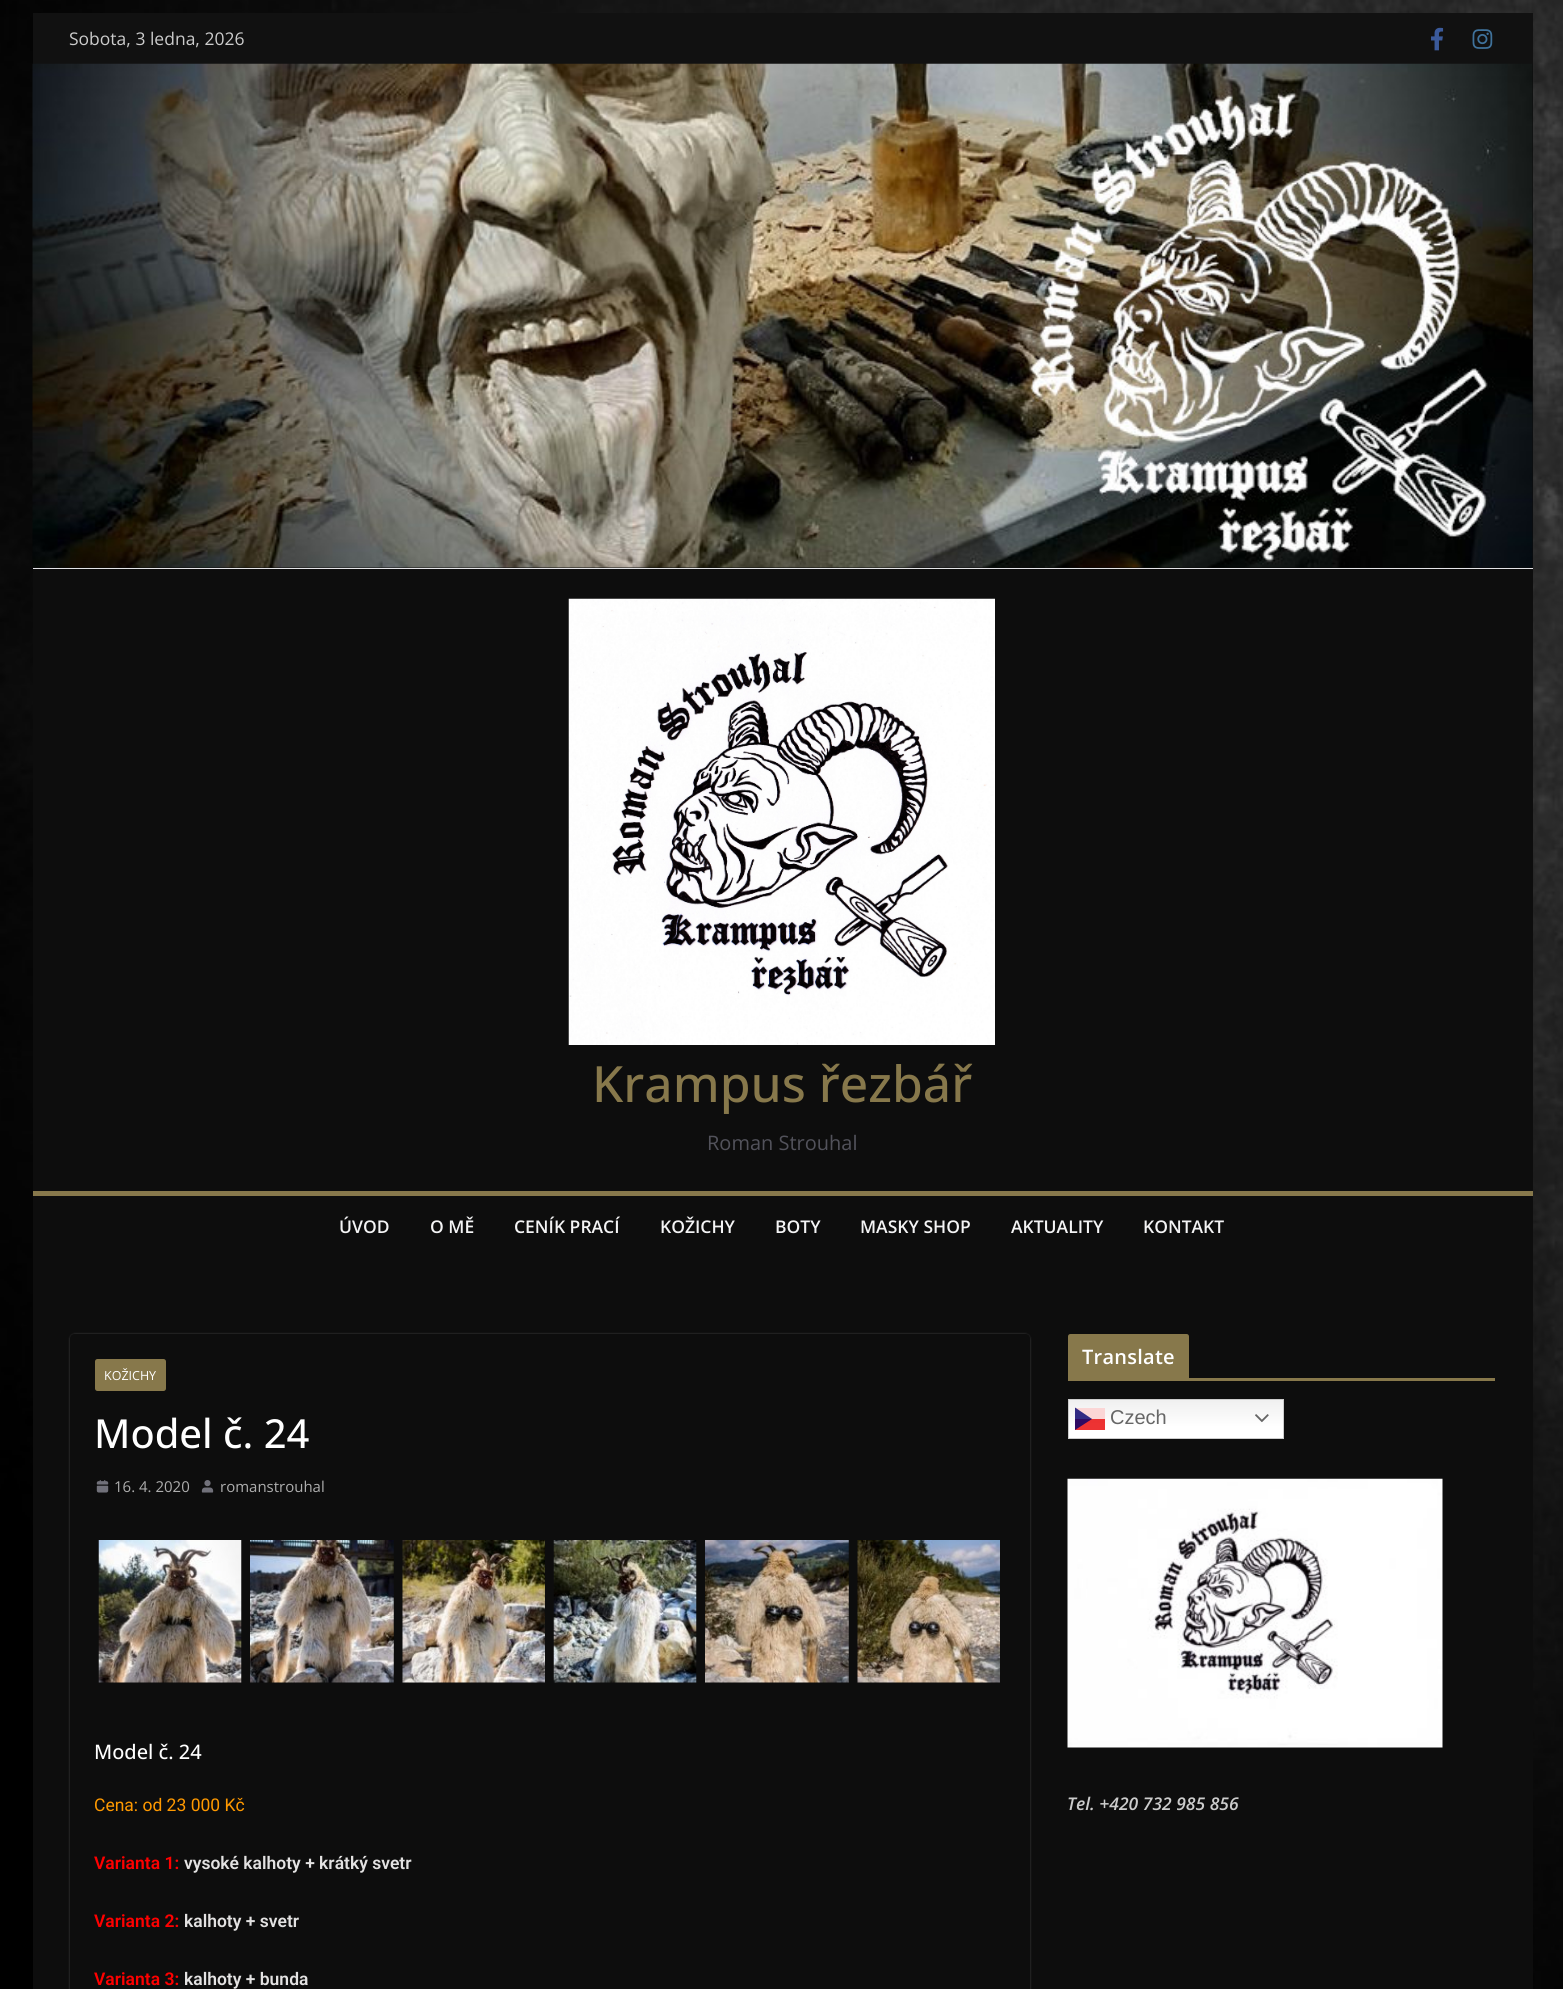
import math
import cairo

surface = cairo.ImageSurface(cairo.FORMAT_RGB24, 1563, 1989)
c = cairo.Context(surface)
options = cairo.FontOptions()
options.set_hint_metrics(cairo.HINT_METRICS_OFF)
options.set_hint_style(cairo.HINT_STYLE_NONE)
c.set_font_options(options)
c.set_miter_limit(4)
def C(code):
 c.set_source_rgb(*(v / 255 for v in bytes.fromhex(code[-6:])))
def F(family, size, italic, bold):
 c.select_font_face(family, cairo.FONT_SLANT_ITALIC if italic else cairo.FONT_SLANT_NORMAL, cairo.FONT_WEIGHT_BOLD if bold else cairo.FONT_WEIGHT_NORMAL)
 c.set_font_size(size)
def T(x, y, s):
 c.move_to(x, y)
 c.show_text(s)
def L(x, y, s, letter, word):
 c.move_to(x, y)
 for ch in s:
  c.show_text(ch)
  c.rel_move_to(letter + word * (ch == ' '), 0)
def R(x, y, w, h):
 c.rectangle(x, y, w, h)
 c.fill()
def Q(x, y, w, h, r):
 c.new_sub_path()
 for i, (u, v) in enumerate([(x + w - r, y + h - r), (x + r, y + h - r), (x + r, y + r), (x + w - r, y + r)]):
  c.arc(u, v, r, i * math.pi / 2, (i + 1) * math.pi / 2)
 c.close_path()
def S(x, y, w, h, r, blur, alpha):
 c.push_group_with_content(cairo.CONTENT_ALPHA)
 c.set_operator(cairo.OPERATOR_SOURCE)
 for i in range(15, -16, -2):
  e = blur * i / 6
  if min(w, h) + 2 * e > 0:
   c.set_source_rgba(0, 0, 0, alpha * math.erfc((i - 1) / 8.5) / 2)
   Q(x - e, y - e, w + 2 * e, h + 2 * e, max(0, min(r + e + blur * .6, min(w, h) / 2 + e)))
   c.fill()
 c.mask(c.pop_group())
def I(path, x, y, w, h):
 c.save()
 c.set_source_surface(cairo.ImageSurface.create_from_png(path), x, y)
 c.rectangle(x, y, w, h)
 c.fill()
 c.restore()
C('ffffff')
c.paint()
I('1.png',0,0,1563,1989)
C('0d0d0d')
R(33,64,1500,1925)
C('111111')
R(33,13,1500,51)
F('Open Sans',17.5,0,0)
C('cccccc')
T(69,45,'Sobota, 3 ledna, 2026')
I('2.png',1431,27,13,24)
I('3.png',1472,29,21,20)
I('4.png',32,63,1501,505)
C('e4e4e7')
R(33,568,1500,1)
I('5.png',568,598,427,447)
F('Open Sans Medium',50,0,0)
C('87784b')
T(592,1102,'Krampus řezbář')
F('Open Sans',20,0,0)
C('52525b')
T(707,1150,'Roman Strouhal')
C('87784b')
R(33,1191,1500,5)
F('Open Sans SemiBold',17.5,0,0)
C('f4f4f5')
T(339,1233,'ÚVOD')
T(430,1233,'O MĚ')
T(514,1233,'CENÍK PRACÍ')
T(660,1233,'KOŽICHY')
T(775,1233,'BOTY')
T(860,1233,'MASKY SHOP')
T(1011,1233,'AKTUALITY')
T(1143,1233,'KONTAKT')
c.save()
c.set_fill_rule(cairo.FILL_RULE_EVEN_ODD)
c.new_path()
c.move_to(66,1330)
c.line_to(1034,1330)
c.line_to(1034,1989)
c.line_to(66,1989)
c.close_path()
c.move_to(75,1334)
c.line_to(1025,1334)
c.curve_to(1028,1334,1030,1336,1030,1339)
c.line_to(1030,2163)
c.curve_to(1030,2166,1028,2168,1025,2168)
c.line_to(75,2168)
c.curve_to(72,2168,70,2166,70,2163)
c.line_to(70,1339)
c.curve_to(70,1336,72,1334,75,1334)
c.close_path()
c.clip()
C('ffffff')
S(70,1334,960,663,5,1,.24)
c.restore()
C('87784b')
Q(95,1359,71,32,2.5)
c.fill()
F('Open Sans',12.5,0,0)
C('ffffff')
T(104,1380,'KOŽICHY')
F('Open Sans Medium',40,0,0)
T(94,1448,'Model č. 24')
I('6.png',96,1480,13,13)
F('Open Sans',15,0,0)
C('aeaeae')
T(114,1492,'16. 4. 2020')
I('7.png',201,1480,13,13)
T(220,1492,'romanstrouhal')
I('8.png',98,1540,144,143)
I('9.png',250,1540,144,143)
I('10.png',402,1540,143,143)
I('11.png',553,1540,144,143)
I('12.png',705,1540,144,143)
I('13.png',857,1540,143,143)
F('Open Sans Medium',20,0,0)
C('ffffff')
T(94,1759,'Model č. 24')
F('Roboto',17.5,0,0)
C('ff9900')
T(94,1811,'Cena: od 23 000 Kč')
F('Roboto SemiBold',17.5,0,0)
C('ff0000')
T(94,1869,'Varianta 1:')
C('e3e2e2')
T(184,1869,'vysoké kalhoty + krátký svetr')
C('ff0000')
T(94,1927,'Varianta 2:')
C('e3e2e2')
T(184,1927,'kalhoty + svetr')
C('ff0000')
T(94,1985,'Varianta 3:')
C('e3e2e2')
T(184,1985,'kalhoty + bunda')
C('87784b')
R(1068,1378,427,3)
c.new_path()
c.move_to(1070.5,1334)
c.line_to(1186.5,1334)
c.curve_to(1188,1334,1189,1335,1189,1336.5)
c.line_to(1189,1378)
c.line_to(1068,1378)
c.line_to(1068,1336.5)
c.curve_to(1068,1335,1069,1334,1070.5,1334)
c.close_path()
c.fill()
F('Open Sans SemiBold',20,0,0)
C('ffffff')
L(1082,1364,'Translate',.25,0)
gradient = cairo.LinearGradient(1176,1399,1176,1439)
gradient.add_color_stop_rgba(0,0.937,0.937,0.937,1)
gradient.add_color_stop_rgba(.7,1,1,1,1)
c.set_source(gradient)
R(1069,1400,214,38)
c.rectangle(1068.5,1399.5,215,39)
C('cccccc')
c.set_line_width(1)
c.stroke()
C('fbd6d6')
R(1075,1408,30,11)
c.set_source_rgba(0.91,0,0,0.8)
R(1075,1419,30,11)
c.set_source_rgba(0,0,0.435,0.8)
c.set_fill_rule(cairo.FILL_RULE_EVEN_ODD)
c.new_path()
c.move_to(1075,1407.5)
c.line_to(1092,1419)
c.line_to(1075,1430)
c.close_path()
c.fill()
F('Liberation Sans',20,0,0)
C('666666')
T(1110,1424,'Czech')
I('14.png',1255,1414,14,9)
I('15.png',1067,1478,376,270)
F('Open Sans SemiBold',17.5,1,0)
C('cccccc')
T(1067,1810,'Tel. +420 732 985 856')
surface.write_to_png('o.png')
